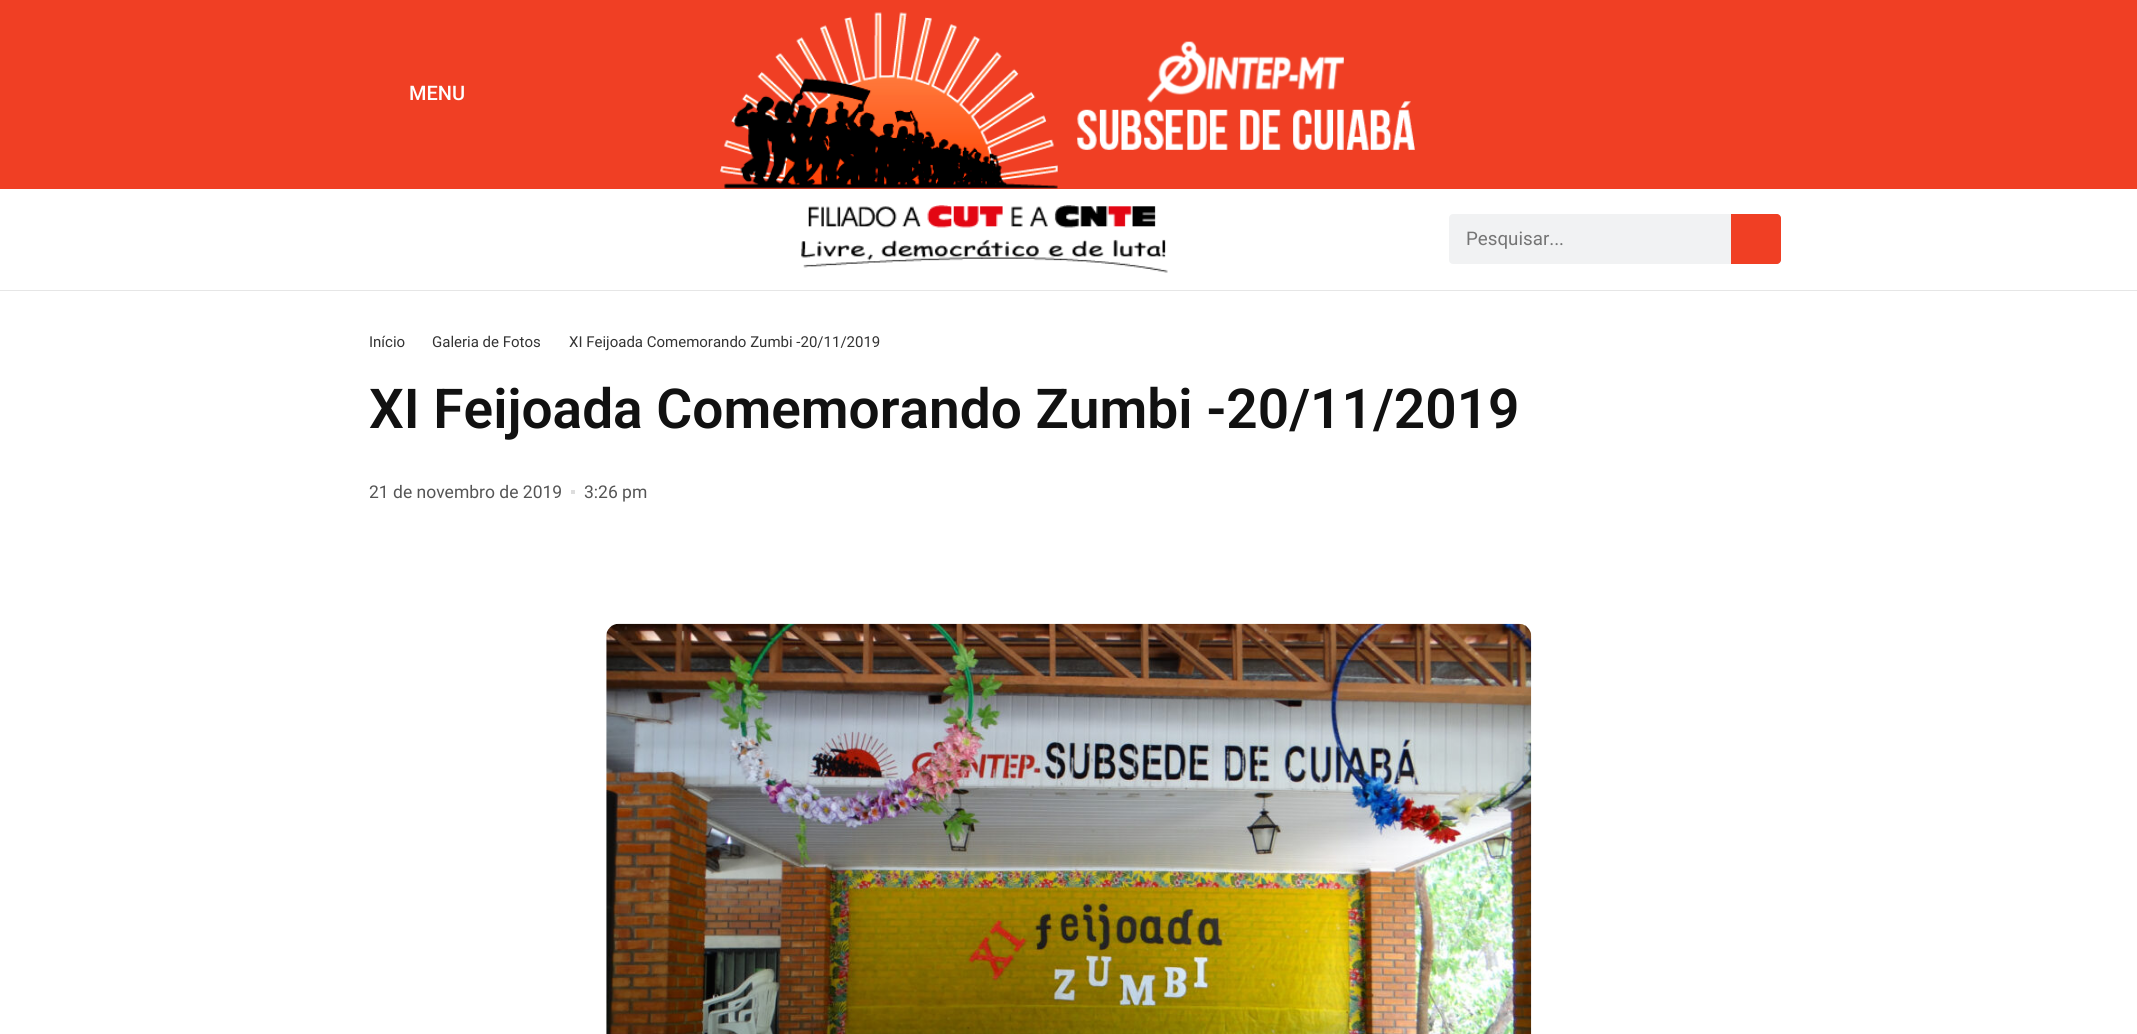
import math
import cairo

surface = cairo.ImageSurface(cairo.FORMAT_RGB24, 2137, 1034)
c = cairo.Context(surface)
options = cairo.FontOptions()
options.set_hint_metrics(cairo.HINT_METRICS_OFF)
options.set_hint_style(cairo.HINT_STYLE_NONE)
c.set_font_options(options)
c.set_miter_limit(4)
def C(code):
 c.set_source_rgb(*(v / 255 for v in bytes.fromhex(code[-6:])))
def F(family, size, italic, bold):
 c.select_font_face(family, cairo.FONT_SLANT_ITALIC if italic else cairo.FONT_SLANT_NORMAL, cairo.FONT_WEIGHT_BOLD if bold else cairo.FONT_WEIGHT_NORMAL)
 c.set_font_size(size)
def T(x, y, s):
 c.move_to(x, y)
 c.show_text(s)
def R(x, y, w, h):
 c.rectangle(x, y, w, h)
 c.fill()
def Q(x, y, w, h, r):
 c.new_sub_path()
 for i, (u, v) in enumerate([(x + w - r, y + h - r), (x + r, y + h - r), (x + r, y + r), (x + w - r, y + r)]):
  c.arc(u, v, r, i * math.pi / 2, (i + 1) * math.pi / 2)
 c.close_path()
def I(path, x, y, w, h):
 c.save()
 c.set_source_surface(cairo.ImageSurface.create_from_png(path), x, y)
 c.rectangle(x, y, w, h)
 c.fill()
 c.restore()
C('ffffff')
c.paint()
C('f03f24')
R(0,0,2137,189)
F('Roboto Medium',20,0,0)
C('ffffff')
T(409,100,'MENU')
I('1.png',720,12,695,177)
C('e6e6e6')
R(0,290,2137,1)
I('2.png',801,205,367,68)
C('f1f2f3')
Q(1449,214,332,50,4)
c.fill()
F('Roboto',18.75,0,0)
C('757575')
T(1466,245,'Pesquisar...')
C('f03f24')
c.new_path()
c.move_to(1731,214)
c.line_to(1777,214)
c.curve_to(1779,214,1781,216,1781,218)
c.line_to(1781,260)
c.curve_to(1781,262,1779,264,1777,264)
c.line_to(1731,264)
c.close_path()
c.fill()
F('Roboto',15,0,0)
C('333333')
T(369,347,'Início')
T(432,347,'Galeria de Fotos')
T(569,347,'XI Feijoada Comemorando Zumbi -20/11/2019')
F('Roboto SemiBold',55,0,0)
C('111111')
T(369,428,'XI Feijoada Comemorando Zumbi -20/11/2019')
F('Roboto',17.5,0,0)
C('555555')
T(369,498,'21 de novembro de 2019')
C('dddddd')
R(571,490,4,4)
C('555555')
T(584,498,'3:26 pm')
I('3.png',606,623,926,411)
surface.write_to_png('o.png')
